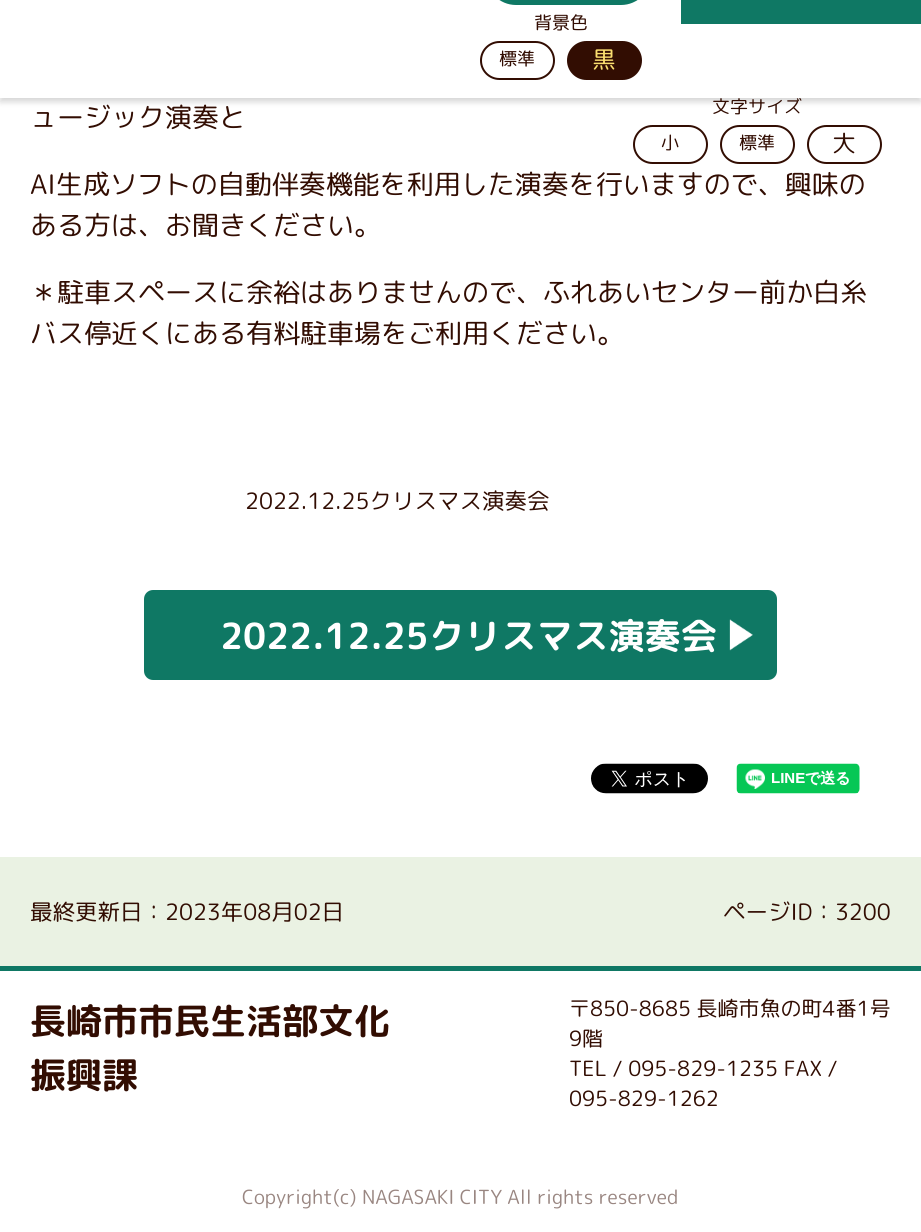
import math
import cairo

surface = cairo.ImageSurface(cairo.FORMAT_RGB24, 921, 1232)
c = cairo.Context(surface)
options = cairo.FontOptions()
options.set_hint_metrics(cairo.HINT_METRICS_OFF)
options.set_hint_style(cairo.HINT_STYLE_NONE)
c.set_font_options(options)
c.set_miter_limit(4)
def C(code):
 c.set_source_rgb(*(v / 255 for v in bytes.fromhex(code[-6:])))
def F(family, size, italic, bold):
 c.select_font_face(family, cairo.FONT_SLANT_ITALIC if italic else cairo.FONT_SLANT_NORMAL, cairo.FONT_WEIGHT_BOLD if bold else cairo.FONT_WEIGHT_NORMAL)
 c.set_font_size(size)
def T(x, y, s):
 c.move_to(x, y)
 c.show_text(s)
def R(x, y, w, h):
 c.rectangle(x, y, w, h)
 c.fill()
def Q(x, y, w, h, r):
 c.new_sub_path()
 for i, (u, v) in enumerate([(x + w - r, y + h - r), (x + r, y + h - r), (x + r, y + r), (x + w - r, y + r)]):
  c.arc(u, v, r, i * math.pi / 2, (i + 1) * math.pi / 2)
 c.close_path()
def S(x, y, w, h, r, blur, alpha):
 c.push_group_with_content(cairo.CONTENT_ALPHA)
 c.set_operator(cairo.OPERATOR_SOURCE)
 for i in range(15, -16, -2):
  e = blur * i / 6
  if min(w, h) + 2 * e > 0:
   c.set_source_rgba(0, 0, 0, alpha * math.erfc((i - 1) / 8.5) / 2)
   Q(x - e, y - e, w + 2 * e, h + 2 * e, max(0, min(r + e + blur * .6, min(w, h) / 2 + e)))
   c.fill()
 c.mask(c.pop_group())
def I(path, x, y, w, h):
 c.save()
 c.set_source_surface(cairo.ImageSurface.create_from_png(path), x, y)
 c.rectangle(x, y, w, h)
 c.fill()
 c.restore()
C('ffffff')
c.paint()
c.save()
c.set_fill_rule(cairo.FILL_RULE_EVEN_ODD)
c.new_path()
c.move_to(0,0)
c.line_to(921,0)
c.line_to(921,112)
c.line_to(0,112)
c.close_path()
c.move_to(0,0)
c.line_to(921,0)
c.line_to(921,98)
c.line_to(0,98)
c.close_path()
c.clip()
C('000000')
S(0,5,921,97,0,3,.16)
c.restore()
c.set_source_rgba(1,1,1,0.8)
R(0,97,921,1)
C('0f7864')
Q(486,-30,165,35,30)
c.fill()
F('Rounded Mplus 1c',18,0,0)
C('320d02')
T(534,29,'背景色')
Q(481,42,73,37,18.5)
c.stroke()
T(499,65,'標準')
Q(568,42,73,37,18.5)
c.fill_preserve()
c.stroke()
F('Rounded Mplus 1c',24,0,0)
C('fade70')
T(592,68,'黒')
C('0f7864')
R(681,0,240,24)
F('Rounded Mplus 1c',18,0,0)
C('320d02')
T(712,113,'文字サイズ')
Q(634,126,73,37,18.5)
c.stroke()
T(661,149,'小')
Q(721,126,73,37,18.5)
c.stroke()
T(739,149,'標準')
Q(808,126,73,37,18.5)
c.stroke()
F('Rounded Mplus 1c',24,0,0)
T(832,152,'大')
F('Rounded Mplus 1c',27,0,0)
T(30,127,'ュージック演奏と')
T(30,194,'AI生成ソフトの自動伴奏機能を利用した演奏を行いますので、興味の')
T(30,235,'ある方は、お聞きください。')
T(30,302,'＊駐車スペースに余裕はありませんので、ふれあいセンター前か白糸')
T(30,343,'バス停近くにある有料駐車場をご利用ください。')
F('Rounded Mplus 1c',22.5,0,0)
T(245,509,'2022.12.25クリスマス演奏会')
C('0f7864')
Q(144,590,633,90,9)
c.fill()
I('1.png',729,619,24,32)
F('Rounded Mplus 1c Bold',36,0,1)
C('ffffff')
T(220,649,'2022.12.25クリスマス演奏会')
I('2.png',591,763,117,31)
I('3.png',736,763,124,31)
C('eaf2e3')
R(0,857,921,109)
F('Rounded Mplus 1c',22.5,0,0)
C('320d02')
T(30,920,'最終更新日：2023年08月02日')
T(723,920,'ページID：3200')
C('0f7864')
R(0,966,921,5)
F('Rounded Mplus 1c Bold',36,0,1)
C('320d02')
T(30,1034,'長崎市市民生活部文化')
T(30,1088,'振興課')
F('Rounded Mplus 1c',21,0,0)
T(569,1016,'〒850-8685 長崎市魚の町4番1号')
T(569,1046,'9階')
T(569,1076,'TEL / 095-829-1235 FAX /')
T(569,1106,'095-829-1262')
F('Rounded Mplus 1c',19.5,0,0)
C('998681')
T(242,1204,'Copyright(c) NAGASAKI CITY All rights reserved')
surface.write_to_png('o.png')
